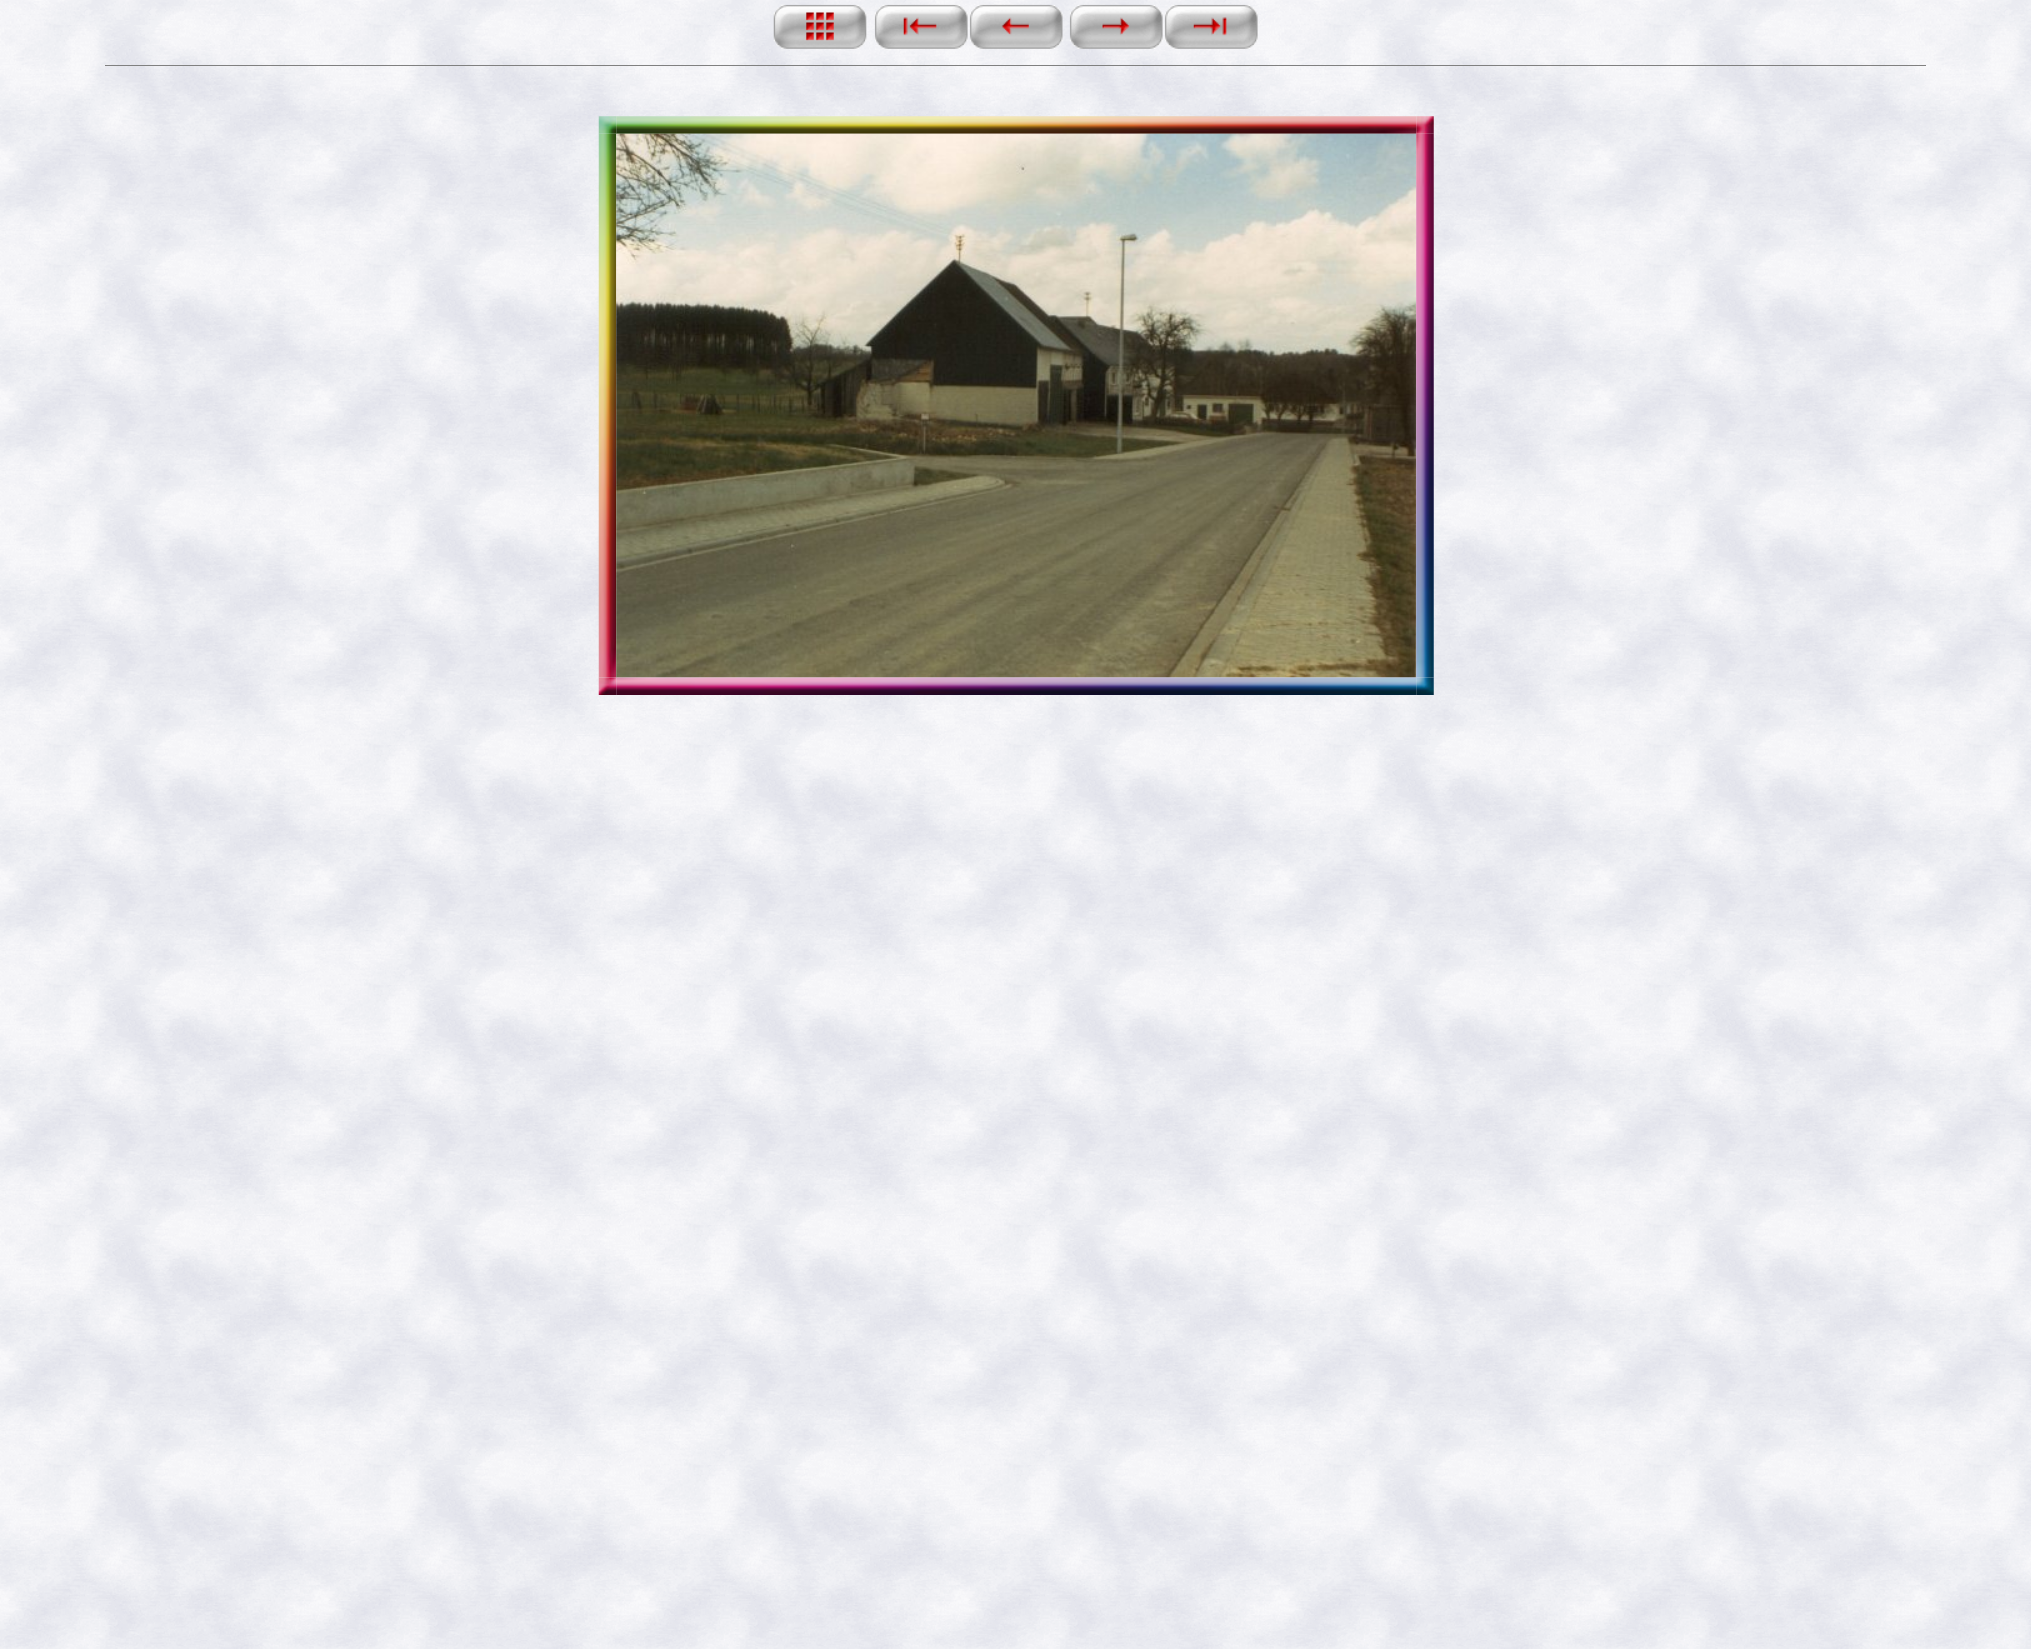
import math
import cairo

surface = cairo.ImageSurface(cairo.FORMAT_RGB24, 2031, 1649)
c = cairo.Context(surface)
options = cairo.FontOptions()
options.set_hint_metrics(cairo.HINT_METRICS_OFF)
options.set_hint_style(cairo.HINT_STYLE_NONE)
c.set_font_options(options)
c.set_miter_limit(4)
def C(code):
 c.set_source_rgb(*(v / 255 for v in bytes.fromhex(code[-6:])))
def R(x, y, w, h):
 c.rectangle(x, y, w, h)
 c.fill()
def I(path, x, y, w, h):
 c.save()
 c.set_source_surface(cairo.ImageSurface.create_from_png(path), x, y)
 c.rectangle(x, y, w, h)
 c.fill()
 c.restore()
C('ffffff')
c.paint()
I('1.png',0,0,2031,1649)
I('2.png',773,4,94,45)
I('3.png',874,4,94,45)
I('4.png',969,4,94,45)
I('5.png',1069,4,94,45)
I('6.png',1164,4,94,45)
C('808080')
R(105,65,1821,1)
I('7.png',598,116,19,18)
I('8.png',616,116,801,18)
I('9.png',1416,116,18,18)
I('10.png',598,133,19,545)
I('11.png',616,133,801,545)
I('12.png',1416,133,18,545)
I('13.png',598,677,19,18)
I('14.png',616,677,801,18)
I('15.png',1416,677,18,18)
surface.write_to_png('o.png')
